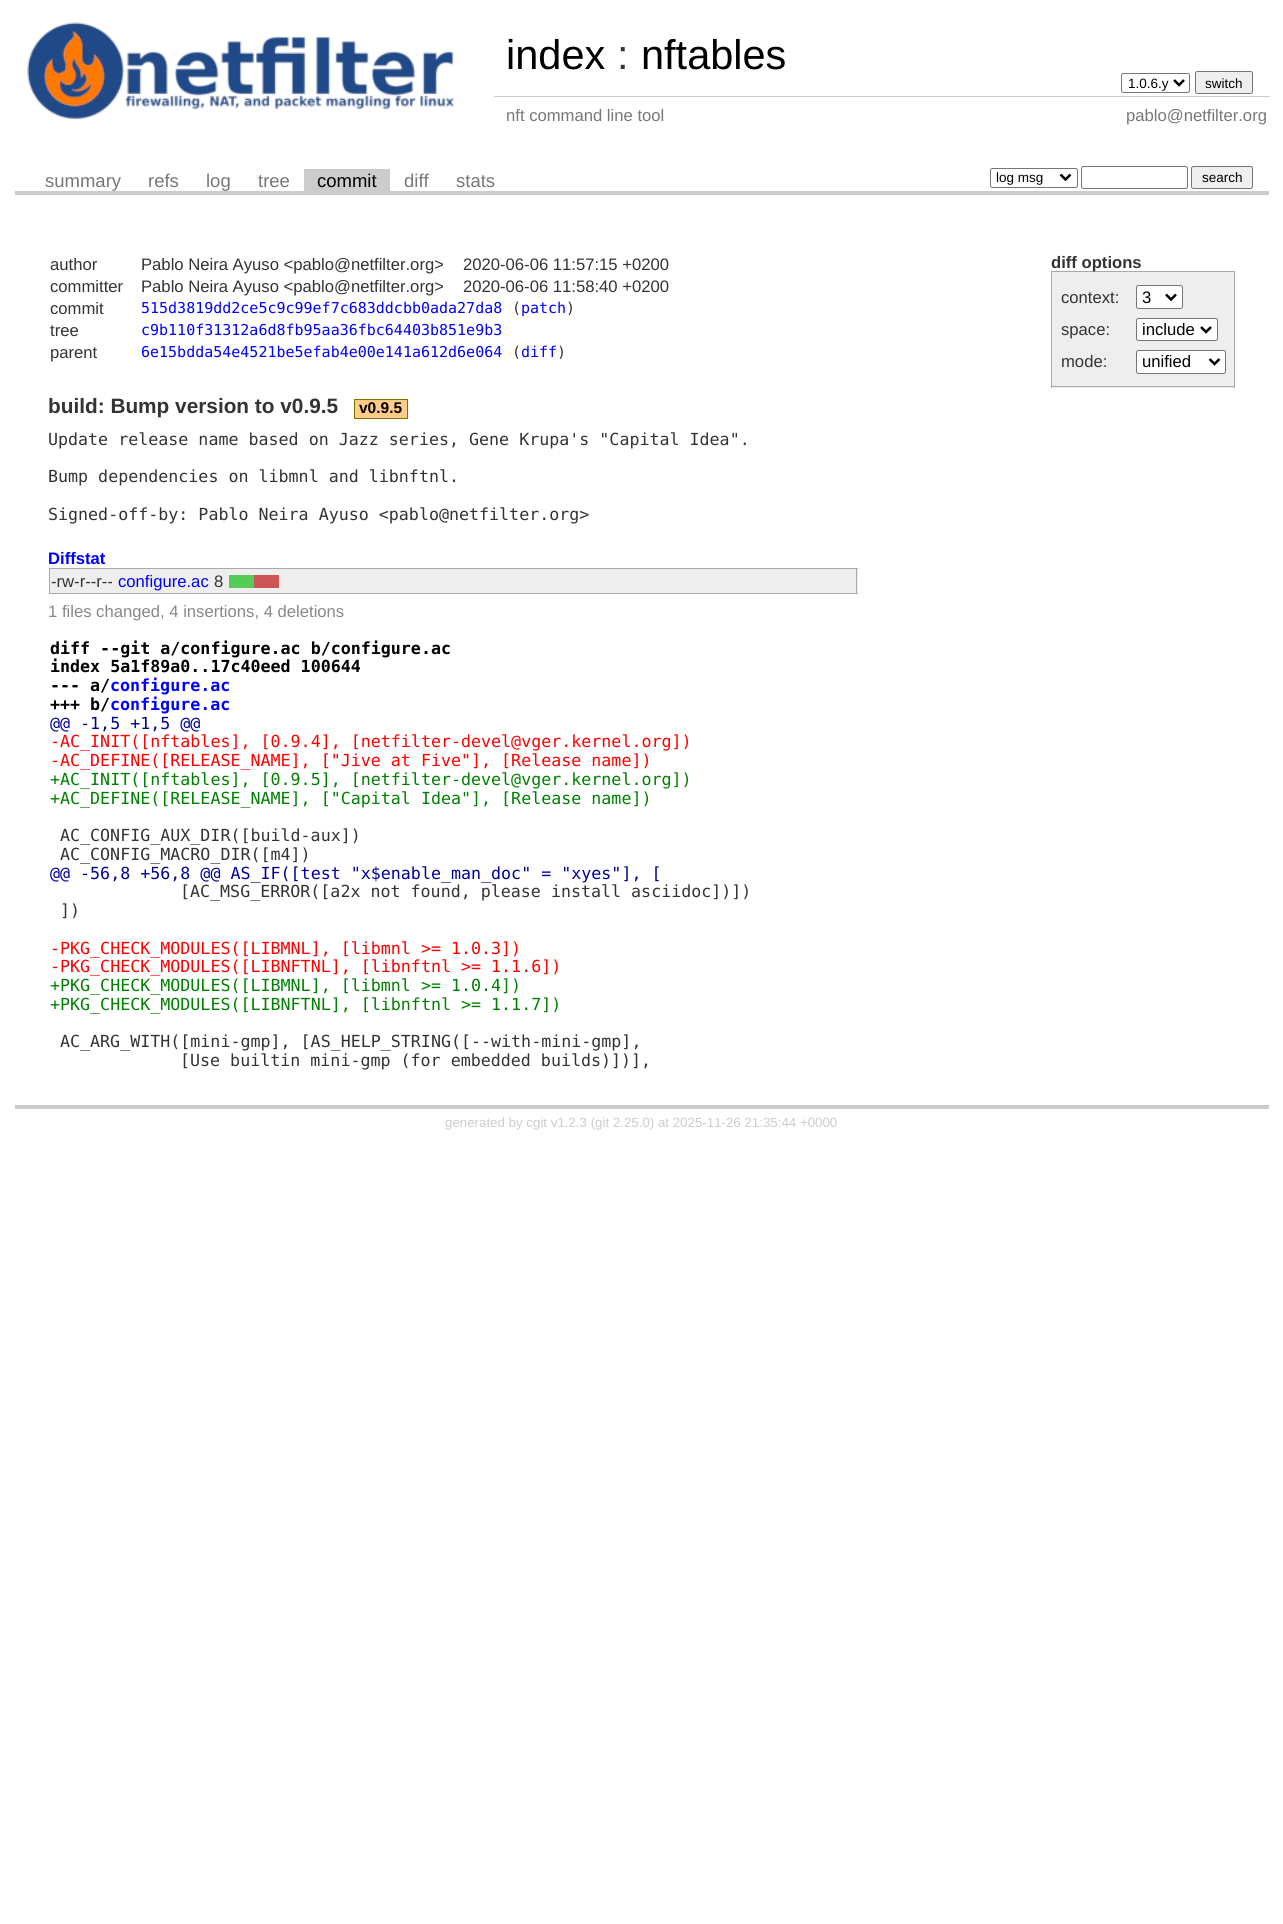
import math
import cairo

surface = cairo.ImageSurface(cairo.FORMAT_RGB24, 1283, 1924)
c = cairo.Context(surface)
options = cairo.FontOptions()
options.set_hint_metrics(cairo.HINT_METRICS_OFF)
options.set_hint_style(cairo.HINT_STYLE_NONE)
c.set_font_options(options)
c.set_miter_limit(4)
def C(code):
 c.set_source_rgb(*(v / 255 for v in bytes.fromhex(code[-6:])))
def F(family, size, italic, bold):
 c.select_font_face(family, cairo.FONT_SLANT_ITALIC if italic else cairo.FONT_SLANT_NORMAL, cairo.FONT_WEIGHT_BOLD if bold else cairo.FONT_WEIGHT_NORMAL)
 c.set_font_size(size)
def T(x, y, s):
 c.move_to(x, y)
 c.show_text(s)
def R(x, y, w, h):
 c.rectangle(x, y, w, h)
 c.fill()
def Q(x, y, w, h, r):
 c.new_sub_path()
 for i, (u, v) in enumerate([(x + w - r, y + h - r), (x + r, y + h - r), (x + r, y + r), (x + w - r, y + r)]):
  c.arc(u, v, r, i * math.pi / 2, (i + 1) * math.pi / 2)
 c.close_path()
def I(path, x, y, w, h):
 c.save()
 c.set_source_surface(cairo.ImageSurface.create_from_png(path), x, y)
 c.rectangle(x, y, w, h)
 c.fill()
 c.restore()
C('ffffff')
c.paint()
I('1.png',27,22,427,98)
F('Liberation Sans',41.5,0,0)
C('000000')
T(506,69,'index')
C('333333')
T(617,69,':')
C('000000')
T(641,69,'nftables')
Q(1121.5,73.5,68,19,2)
C('767676')
c.set_line_width(1)
c.stroke()
c.new_path()
c.move_to(1174,80)
c.line_to(1179,85)
c.line_to(1184,80)
C('000000')
c.set_line_width(2.5)
c.stroke()
F('Liberation Sans',13.5,0,0)
T(1128,88,'1.0.6.y')
C('efefef')
Q(1195.5,71.5,57,22,2)
c.fill_preserve()
C('767676')
c.set_line_width(1)
c.stroke()
C('000000')
T(1205,88,'switch')
F('Liberation Sans',16.65,0,0)
C('777777')
T(506,121,'nft command line tool')
C('cccccc')
R(494,96,776,1)
C('777777')
T(1126,121,'pablo@netfilter.org')
C('cccccc')
R(15,191,1254,4)
F('Liberation Sans',18.5,0,0)
C('777777')
T(45,187,'summary')
T(148,187,'refs')
T(206,187,'log')
T(258,187,'tree')
C('cccccc')
R(304,169,86,22)
C('000000')
T(317,187,'commit')
C('777777')
T(404,187,'diff')
T(456,187,'stats')
Q(990.5,168.5,87,19,2)
C('767676')
c.stroke()
c.new_path()
c.move_to(1060.5,174.5)
c.line_to(1065.5,179.5)
c.line_to(1070.5,174.5)
C('000000')
c.set_line_width(2.5)
c.stroke()
F('Liberation Sans',13.5,0,0)
T(996,182,'log msg')
Q(1081.5,166.5,106,22,2)
C('767676')
c.set_line_width(1)
c.stroke()
C('efefef')
Q(1191.5,166.5,61,22,2)
c.fill_preserve()
C('767676')
c.stroke()
C('000000')
T(1202,182,'search')
C('cccccc')
R(15,1105,1254,4)
F('Liberation Sans',16.65,0,0)
C('333333')
T(50,270,'author')
T(141,270,'Pablo Neira Ayuso <pablo@netfilter.org>')
T(463,270,'2020-06-06 11:57:15 +0200')
T(50,292,'committer')
T(141,292,'Pablo Neira Ayuso <pablo@netfilter.org>')
T(463,292,'2020-06-06 11:58:40 +0200')
T(50,314,'commit')
F('DejaVu Sans Mono',15,0,0)
C('0000ff')
T(141,313,'515d3819dd2ce5c9c99ef7c683ddcbb0ada27da8')
C('333333')
T(512,313,'(')
C('0000ff')
T(521,313,'patch')
C('333333')
T(566,313,')')
F('Liberation Sans',16.65,0,0)
T(50,336,'tree')
F('DejaVu Sans Mono',15,0,0)
C('0000ff')
T(141,335,'c9b110f31312a6d8fb95aa36fbc64403b851e9b3')
F('Liberation Sans',16.65,0,0)
C('333333')
T(50,358,'parent')
F('DejaVu Sans Mono',15,0,0)
C('0000ff')
T(141,357,'6e15bdda54e4521be5efab4e00e141a612d6e064')
C('333333')
T(512,357,'(')
C('0000ff')
T(521,357,'diff')
C('333333')
T(557,357,')')
C('aaaaaa')
R(1051,271,184,1)
C('eeeeee')
R(1052,272,182,116)
C('aaaaaa')
R(1234,271,1,117)
R(1051,386,184,1)
R(1051,271,1,117)
F('Liberation Sans',16.65,0,1)
C('333333')
T(1051,268,'diff options')
F('Liberation Sans',16.65,0,0)
T(1061,303,'context:')
C('ffffff')
Q(1136.5,285.5,46,23,2)
c.fill_preserve()
C('767676')
c.stroke()
c.new_path()
c.move_to(1166,294.5)
c.line_to(1171,299.5)
c.line_to(1176,294.5)
C('000000')
c.set_line_width(2.5)
c.stroke()
T(1142,303,'3')
C('333333')
T(1061,335,'space:')
C('ffffff')
Q(1136.5,318.5,81,22,2)
c.fill_preserve()
C('767676')
c.set_line_width(1)
c.stroke()
c.new_path()
c.move_to(1201,327)
c.line_to(1206,332)
c.line_to(1211,327)
C('000000')
c.set_line_width(2.5)
c.stroke()
T(1142,335,'include')
C('333333')
T(1061,367,'mode:')
C('ffffff')
Q(1136.5,350.5,89,23,2)
c.fill_preserve()
C('767676')
c.set_line_width(1)
c.stroke()
c.new_path()
c.move_to(1209.5,359)
c.line_to(1214.5,364)
c.line_to(1219.5,359)
C('000000')
c.set_line_width(2.5)
c.stroke()
T(1142,367,'unified')
F('Liberation Sans',20.8,0,1)
C('333333')
T(48,413,'build: Bump version to v0.9.5')
C('ffcc88')
c.rectangle(354.5,399.5,53,19)
c.fill_preserve()
C('777700')
c.set_line_width(1)
c.stroke()
F('Liberation Sans',15.5,0,1)
C('000000')
T(359,413,'v0.9.5')
F('DejaVu Sans Mono',16.65,0,0)
C('333333')
T(48,445,'Update release name based on Jazz series, Gene Krupa\'s "Capital Idea".')
T(48,482,'Bump dependencies on libmnl and libnftnl.')
T(48,520,'Signed-off-by: Pablo Neira Ayuso <pablo@netfilter.org>')
F('Liberation Sans',16.65,0,1)
C('0000ff')
T(48,564,'Diffstat')
C('eeeeee')
R(50,569,808,24)
C('aaaaaa')
R(49,568,809,1)
R(856,568,1,26)
R(49,593,809,1)
R(49,568,1,26)
F('Liberation Sans',16.65,0,0)
C('333333')
T(51,587,'-rw-r--r--')
C('0000ff')
T(118,587,'configure.ac')
C('333333')
T(214,587,'8')
C('55cc55')
R(229,575,25,13)
C('cc5555')
R(254,575,25,13)
C('888888')
T(48,617,'1 files changed, 4 insertions, 4 deletions')
F('DejaVu Sans Mono',16.65,0,1)
C('000000')
T(50,654,'diff --git a/configure.ac b/configure.ac')
T(50,672,'index 5a1f89a0..17c40eed 100644')
T(50,691,'--- a/')
C('0000ff')
T(110,691,'configure.ac')
C('000000')
T(50,710,'+++ b/')
C('0000ff')
T(110,710,'configure.ac')
F('DejaVu Sans Mono',16.65,0,0)
C('000099')
T(50,729,'@@ -1,5 +1,5 @@')
C('ff0000')
T(50,747,'-AC_INIT([nftables], [0.9.4], [netfilter-devel@vger.kernel.org])')
T(50,766,'-AC_DEFINE([RELEASE_NAME], ["Jive at Five"], [Release name])')
C('008000')
T(50,785,'+AC_INIT([nftables], [0.9.5], [netfilter-devel@vger.kernel.org])')
T(50,804,'+AC_DEFINE([RELEASE_NAME], ["Capital Idea"], [Release name])')
C('333333')
T(60,841,'AC_CONFIG_AUX_DIR([build-aux])')
T(60,860,'AC_CONFIG_MACRO_DIR([m4])')
C('000099')
T(50,879,'@@ -56,8 +56,8 @@ AS_IF([test "x$enable_man_doc" = "xyes"], [')
C('333333')
T(180,897,'[AC_MSG_ERROR([a2x not found, please install asciidoc])])')
T(60,916,'])')
C('ff0000')
T(50,954,'-PKG_CHECK_MODULES([LIBMNL], [libmnl >= 1.0.3])')
T(50,972,'-PKG_CHECK_MODULES([LIBNFTNL], [libnftnl >= 1.1.6])')
C('008000')
T(50,991,'+PKG_CHECK_MODULES([LIBMNL], [libmnl >= 1.0.4])')
T(50,1010,'+PKG_CHECK_MODULES([LIBNFTNL], [libnftnl >= 1.1.7])')
C('333333')
T(60,1047,'AC_ARG_WITH([mini-gmp], [AS_HELP_STRING([--with-mini-gmp],')
T(180,1066,'[Use builtin mini-gmp (for embedded builds)])],')
F('Liberation Sans',13.3,0,0)
C('cccccc')
T(445,1127,'generated by cgit v1.2.3 (git 2.25.0) at 2025-11-26 21:35:44 +0000')
surface.write_to_png('o.png')
